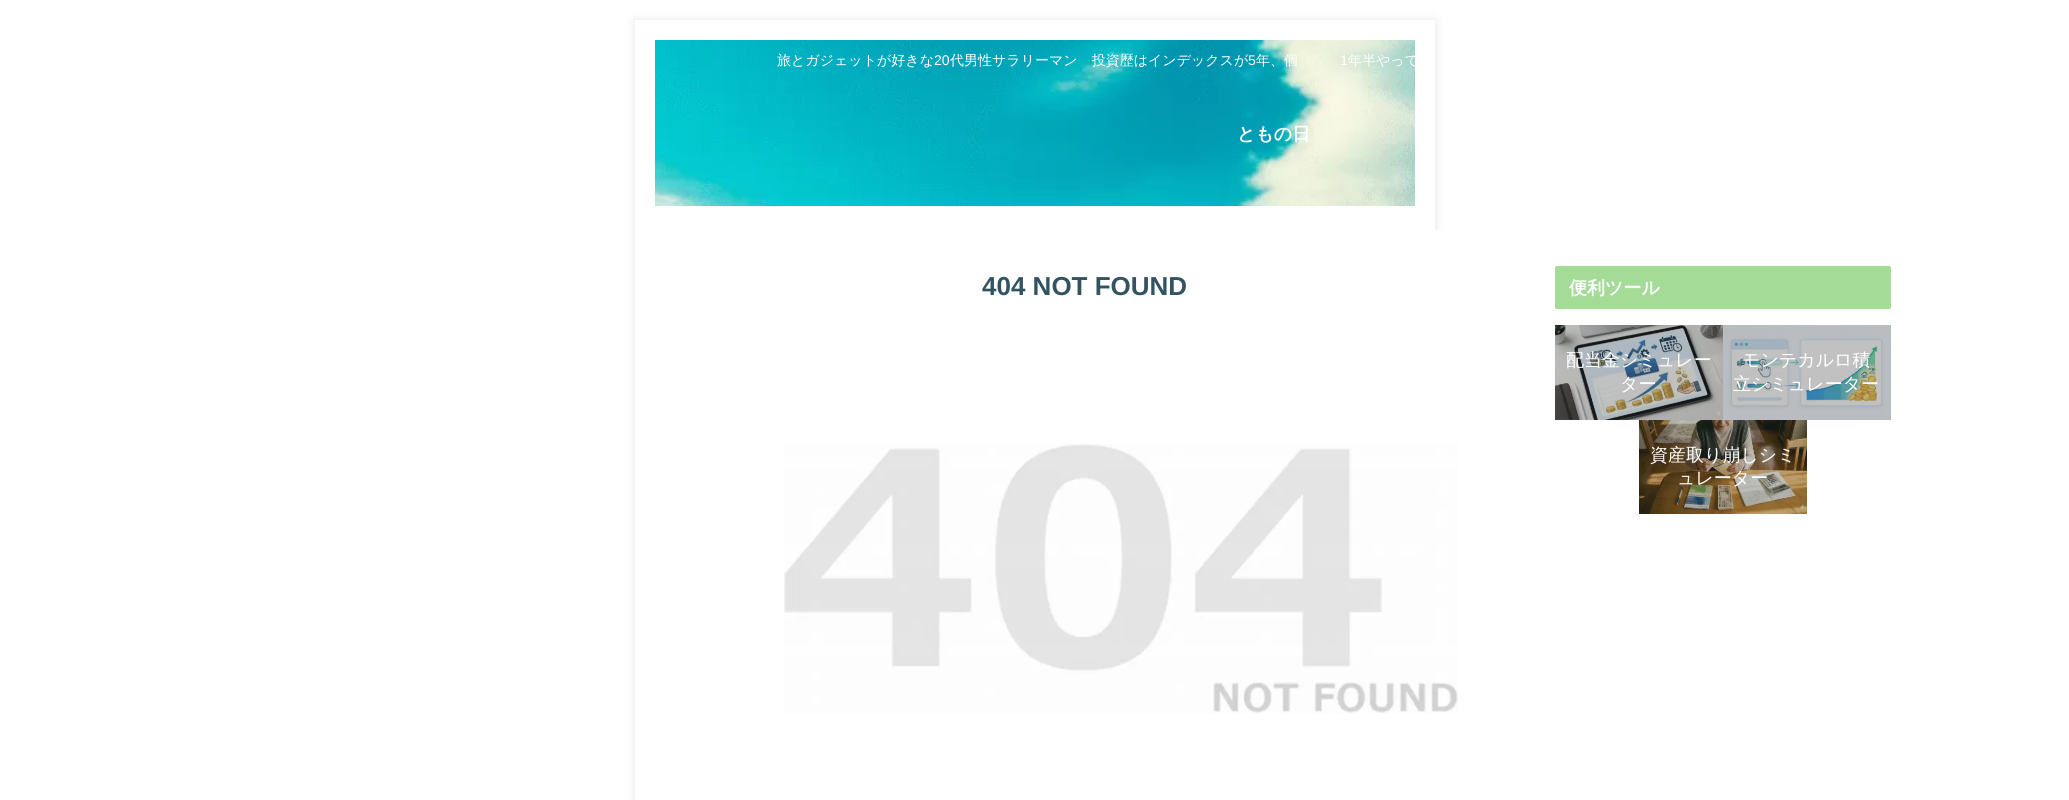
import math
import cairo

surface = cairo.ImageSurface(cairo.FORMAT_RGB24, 2069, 800)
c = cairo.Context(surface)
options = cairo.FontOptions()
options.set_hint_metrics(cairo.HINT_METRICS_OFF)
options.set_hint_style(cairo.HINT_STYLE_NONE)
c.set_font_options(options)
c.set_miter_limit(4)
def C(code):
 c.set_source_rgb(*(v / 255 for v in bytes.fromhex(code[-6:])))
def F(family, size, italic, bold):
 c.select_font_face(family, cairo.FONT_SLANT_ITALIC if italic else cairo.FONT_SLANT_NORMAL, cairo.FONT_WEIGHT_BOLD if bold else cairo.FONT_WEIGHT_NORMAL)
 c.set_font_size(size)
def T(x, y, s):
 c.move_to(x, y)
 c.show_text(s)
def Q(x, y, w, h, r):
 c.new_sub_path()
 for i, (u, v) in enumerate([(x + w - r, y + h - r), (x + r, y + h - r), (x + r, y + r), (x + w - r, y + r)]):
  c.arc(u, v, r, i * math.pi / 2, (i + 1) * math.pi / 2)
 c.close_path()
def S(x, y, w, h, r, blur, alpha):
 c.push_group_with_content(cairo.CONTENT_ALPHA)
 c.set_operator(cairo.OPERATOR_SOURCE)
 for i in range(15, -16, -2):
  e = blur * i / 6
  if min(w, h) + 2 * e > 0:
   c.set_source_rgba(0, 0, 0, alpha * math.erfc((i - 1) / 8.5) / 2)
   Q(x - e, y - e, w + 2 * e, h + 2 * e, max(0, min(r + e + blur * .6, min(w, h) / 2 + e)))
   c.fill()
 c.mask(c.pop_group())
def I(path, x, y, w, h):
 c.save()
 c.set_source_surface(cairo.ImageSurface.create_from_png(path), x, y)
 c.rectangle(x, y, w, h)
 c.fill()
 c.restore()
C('ffffff')
c.paint()
c.save()
c.set_fill_rule(cairo.FILL_RULE_EVEN_ODD)
c.new_path()
c.move_to(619,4)
c.line_to(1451,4)
c.line_to(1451,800)
c.line_to(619,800)
c.close_path()
c.move_to(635,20)
c.line_to(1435,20)
c.line_to(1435,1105)
c.line_to(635,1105)
c.close_path()
c.clip()
C('000000')
S(635,20,800,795,0,5,.1)
c.restore()
I('1.png',655,40,760,166)
F('WenQuanYi Zen Hei Medium',14,0,0)
C('ffffff')
T(777,65,'旅とガジェットが好きな')
F('Liberation Sans',14,0,0)
T(934,65,'20')
F('WenQuanYi Zen Hei Medium',14,0,0)
T(950,65,'代男性サラリーマン　投資歴はインデックスが')
F('Liberation Sans',14,0,0)
T(1248,65,'5')
F('WenQuanYi Zen Hei Medium',14,0,0)
T(1256,65,'年、個')
F('Liberation Sans',14,0,0)
T(1340,65,'1')
F('WenQuanYi Zen Hei Medium',14,0,0)
T(1348,65,'年半やって')
F('WenQuanYi Zen Hei',18,0,1)
T(1237,140,'ともの日')
Q(655,230,860,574,4)
c.fill()
F('Liberation Sans',26,0,1)
C('335361')
T(982,295,'404 NOT FOUND')
I('2.png',784,444,674,270)
C('a4db97')
Q(1555,266,336,43,2)
c.fill()
F('WenQuanYi Zen Hei',18,0,1)
C('ffffff')
T(1569,294,'便利ツール')
I('3.png',1555,325,168,95)
F('WenQuanYi Zen Hei Medium',18,0,0)
T(1566,366,'配当金シミュレー')
T(1620,390,'ター')
I('4.png',1723,325,168,95)
T(1742,366,'モンテカルロ積')
T(1733,390,'立シミュレーター')
I('5.png',1639,420,168,94)
T(1650,461,'資産取り崩しシミ')
T(1677,484,'ュレーター')
surface.write_to_png('o.png')
